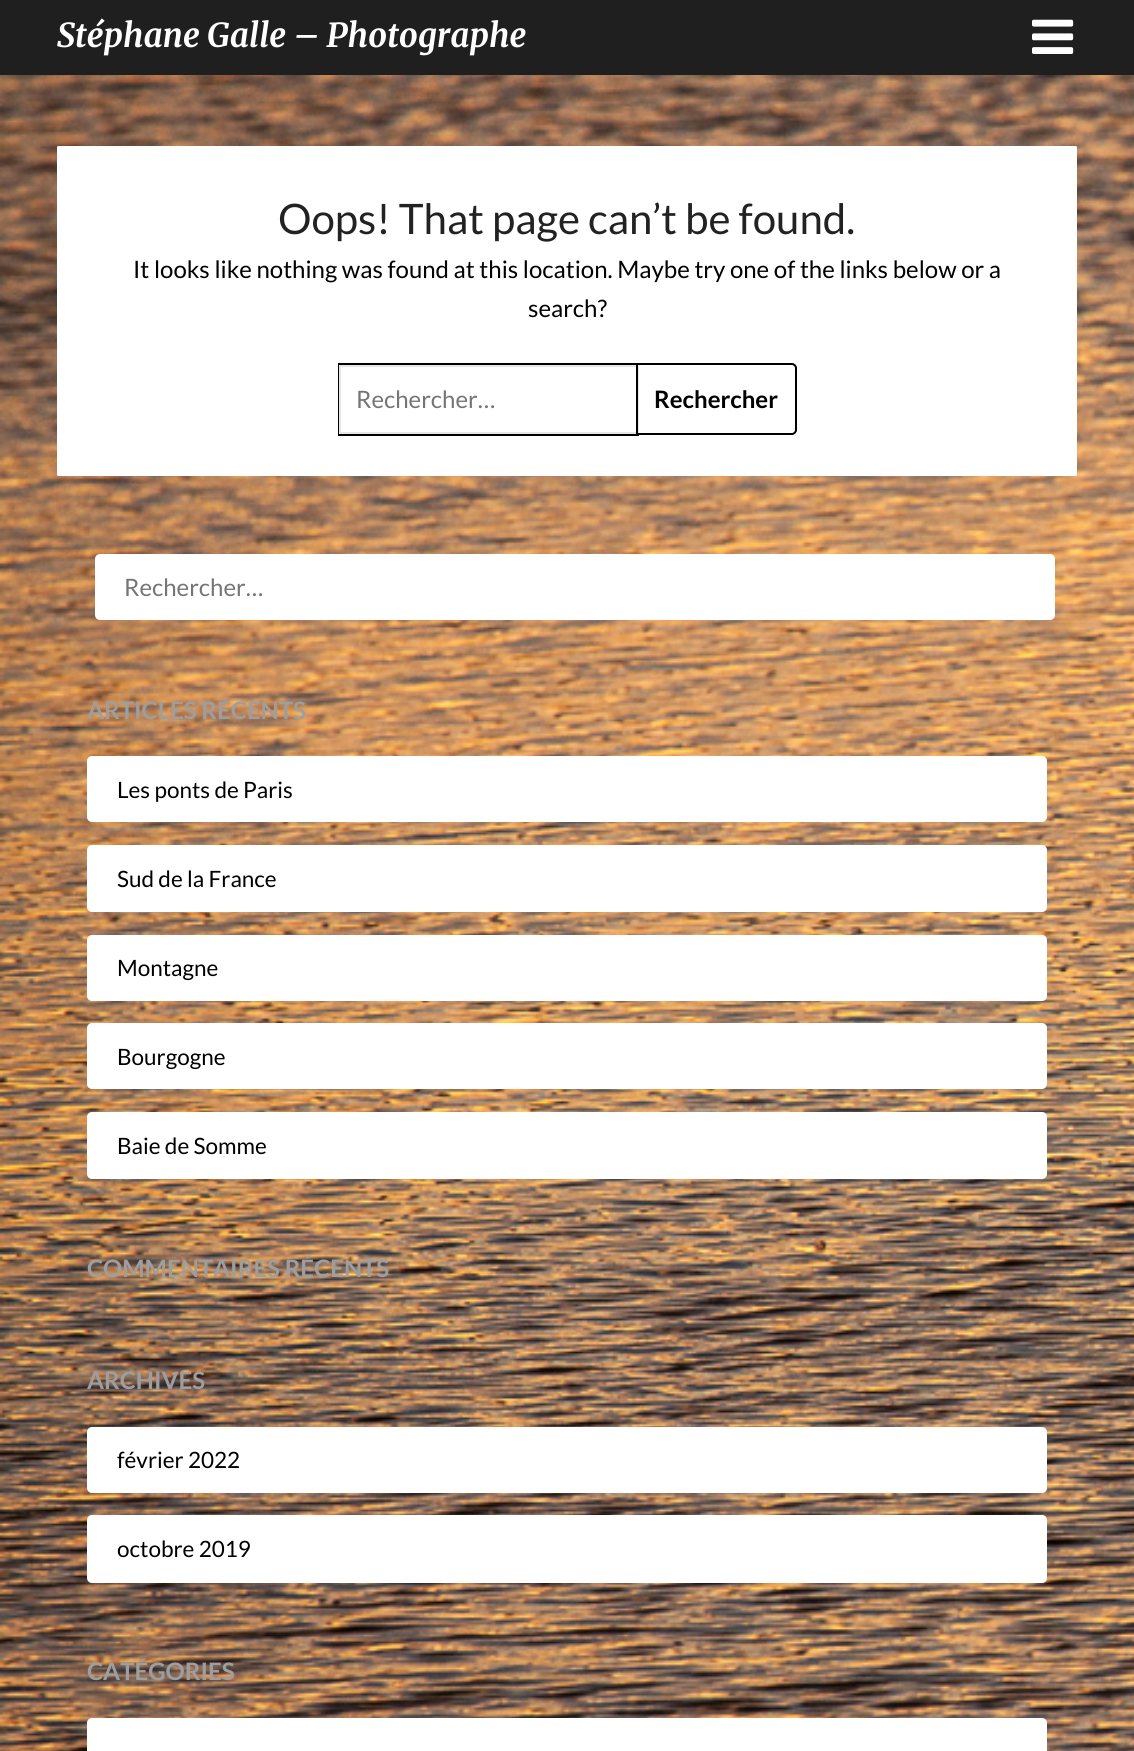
import math
import cairo

surface = cairo.ImageSurface(cairo.FORMAT_RGB24, 1134, 1751)
c = cairo.Context(surface)
options = cairo.FontOptions()
options.set_hint_metrics(cairo.HINT_METRICS_OFF)
options.set_hint_style(cairo.HINT_STYLE_NONE)
c.set_font_options(options)
c.set_miter_limit(4)
def C(code):
 c.set_source_rgb(*(v / 255 for v in bytes.fromhex(code[-6:])))
def F(family, size, italic, bold):
 c.select_font_face(family, cairo.FONT_SLANT_ITALIC if italic else cairo.FONT_SLANT_NORMAL, cairo.FONT_WEIGHT_BOLD if bold else cairo.FONT_WEIGHT_NORMAL)
 c.set_font_size(size)
def T(x, y, s):
 c.move_to(x, y)
 c.show_text(s)
def R(x, y, w, h):
 c.rectangle(x, y, w, h)
 c.fill()
def Q(x, y, w, h, r):
 c.new_sub_path()
 for i, (u, v) in enumerate([(x + w - r, y + h - r), (x + r, y + h - r), (x + r, y + r), (x + w - r, y + r)]):
  c.arc(u, v, r, i * math.pi / 2, (i + 1) * math.pi / 2)
 c.close_path()
def I(path, x, y, w, h):
 c.save()
 c.set_source_surface(cairo.ImageSurface.create_from_png(path), x, y)
 c.rectangle(x, y, w, h)
 c.fill()
 c.restore()
C('ffffff')
c.paint()
I('1.png',0,75,1134,1676)
C('1f1f1f')
R(0,0,1134,75)
F('Merriweather',33,1,1)
C('ffffff')
T(57,47,'Stéphane Galle – Photographe')
I('2.png',1032,19,42,35)
Q(57,146,1020,330,1.5)
c.fill()
F('Lato',42,0,0)
C('222222')
T(278,234,'Oops! That page can’t be found.')
F('Lato',24,0,0)
C('000000')
T(133,278,'It looks like nothing was found at this location. Maybe try one of the links below or a')
T(528,317,'search?')
R(338,363,301,2)
R(338,434,301,2)
R(338,363,2,72)
c.rectangle(340,366,298,67)
C('e5e6e9')
c.stroke()
C('757575')
T(356,408,'Rechercher…')
c.new_path()
c.move_to(637,364)
c.line_to(792,364)
c.curve_to(794,364,796,366,796,368)
c.line_to(796,430)
c.curve_to(796,432,794,434,792,434)
c.line_to(637,434)
c.close_path()
C('000000')
c.stroke()
F('Lato',24,0,1)
T(654,408,'Rechercher')
C('ffffff')
Q(95,554,960,66,5)
c.fill()
F('Lato',24,0,0)
C('757575')
T(124,596,'Rechercher…')
F('Lato',24,0,1)
C('9e9e9e')
T(87,719,'ARTICLES RÉCENTS')
C('ffffff')
Q(87,756,960,66,5)
c.fill()
F('Lato',22.5,0,0)
C('000000')
T(117,798,'Les ponts de Paris')
C('ffffff')
Q(87,845,960,67,5)
c.fill()
C('000000')
T(117,887,'Sud de la France')
C('ffffff')
Q(87,935,960,66,5)
c.fill()
C('000000')
T(117,976,'Montagne')
C('ffffff')
Q(87,1023,960,66,5)
c.fill()
C('000000')
T(117,1065,'Bourgogne')
C('ffffff')
Q(87,1112,960,67,5)
c.fill()
C('000000')
T(117,1154,'Baie de Somme')
F('Lato',24,0,1)
C('9e9e9e')
T(87,1277,'COMMENTAIRES RÉCENTS')
T(87,1389,'ARCHIVES')
C('ffffff')
Q(87,1427,960,66,5)
c.fill()
F('Lato',22.5,0,0)
C('000000')
T(117,1468,'février 2022')
C('ffffff')
Q(87,1515,960,68,5)
c.fill()
C('000000')
T(117,1557,'octobre 2019')
F('Lato',24,0,1)
C('9e9e9e')
T(87,1680,'CATÉGORIES')
C('ffffff')
Q(87,1718,960,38,5)
c.fill()
surface.write_to_png('o.png')
